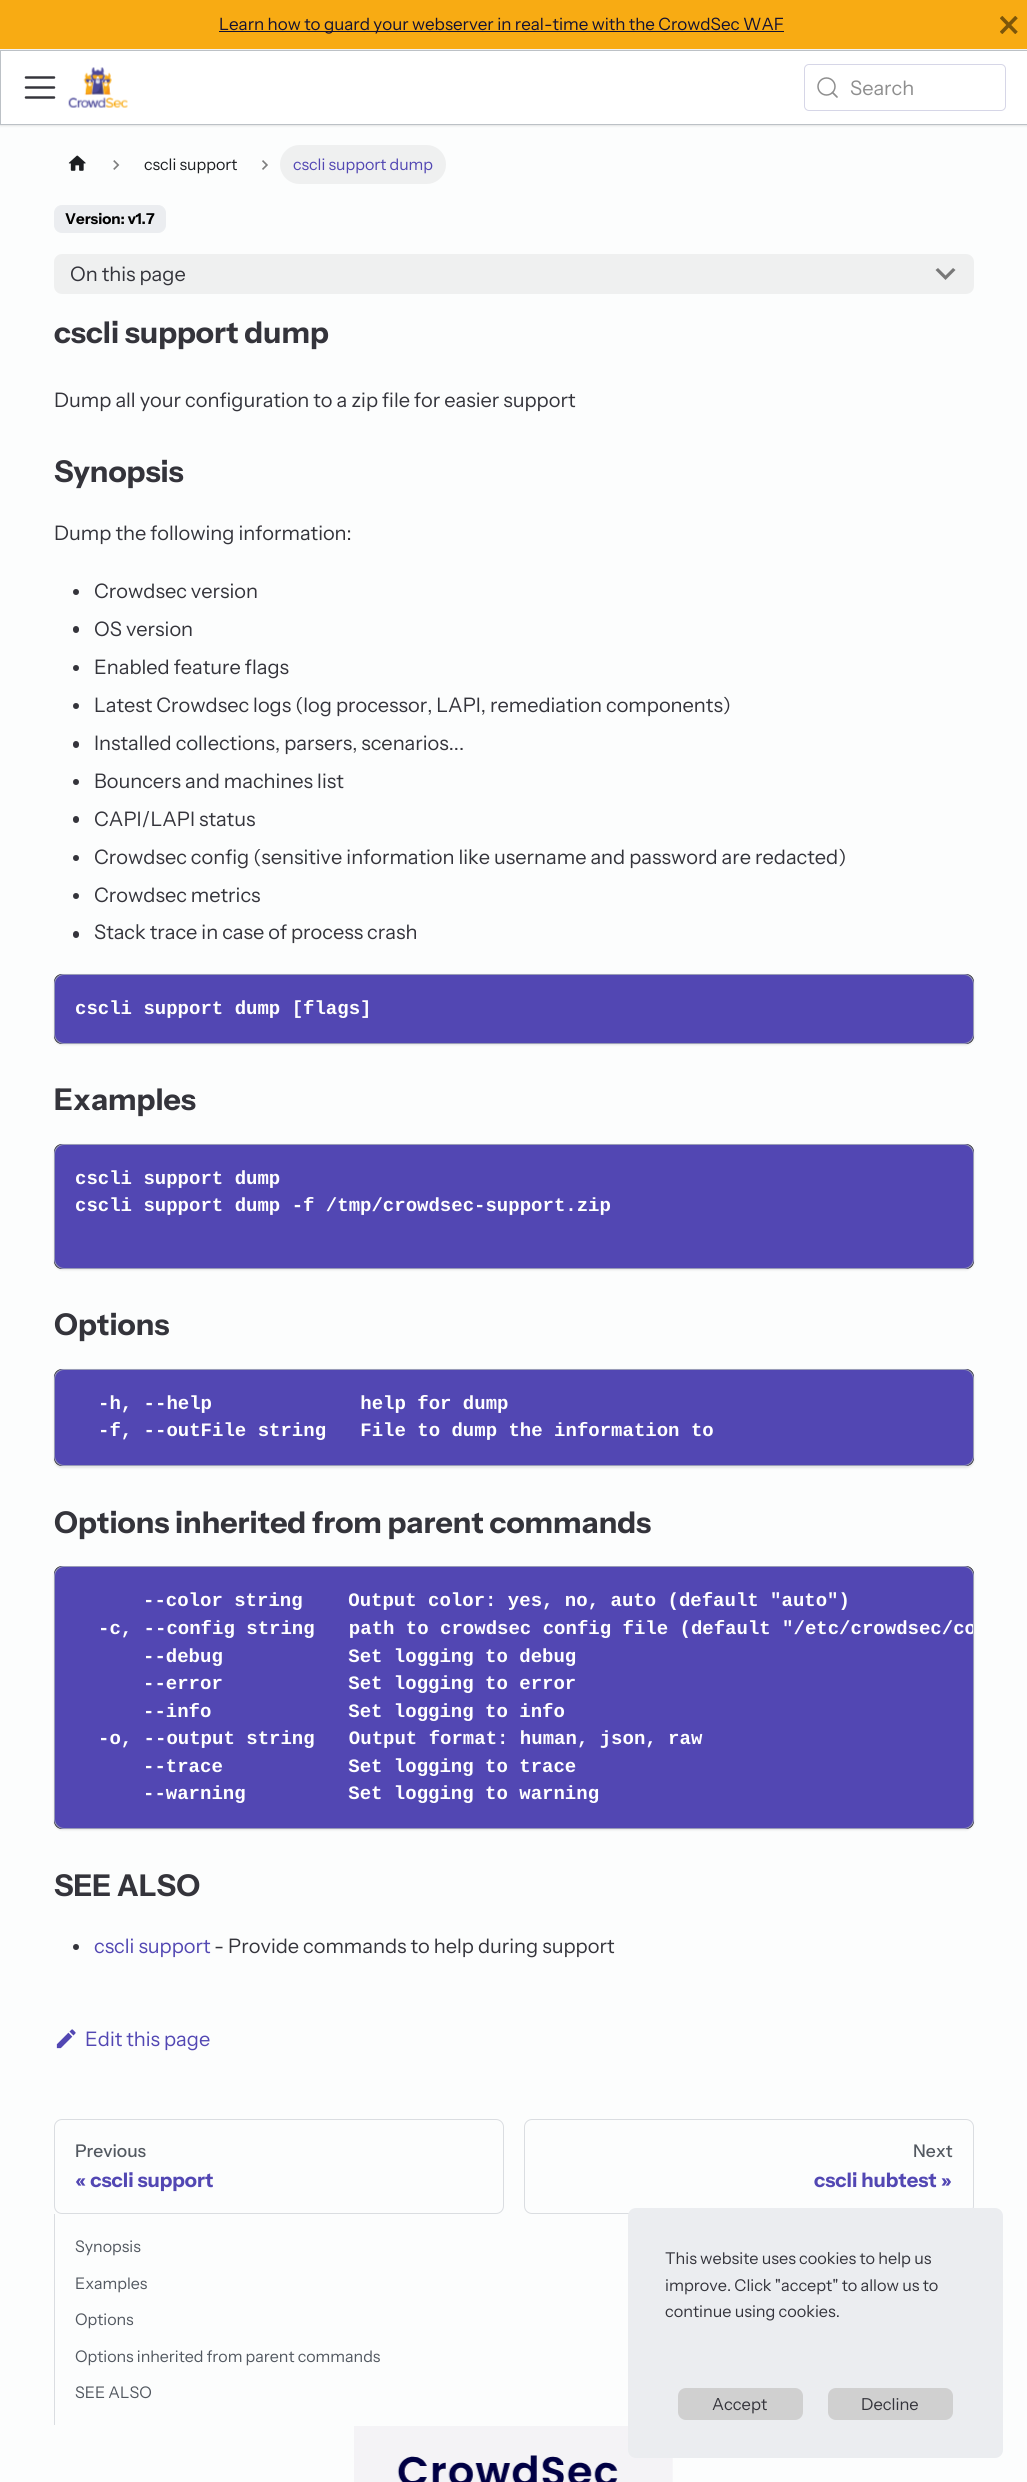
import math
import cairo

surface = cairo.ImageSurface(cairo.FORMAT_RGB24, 1027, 2482)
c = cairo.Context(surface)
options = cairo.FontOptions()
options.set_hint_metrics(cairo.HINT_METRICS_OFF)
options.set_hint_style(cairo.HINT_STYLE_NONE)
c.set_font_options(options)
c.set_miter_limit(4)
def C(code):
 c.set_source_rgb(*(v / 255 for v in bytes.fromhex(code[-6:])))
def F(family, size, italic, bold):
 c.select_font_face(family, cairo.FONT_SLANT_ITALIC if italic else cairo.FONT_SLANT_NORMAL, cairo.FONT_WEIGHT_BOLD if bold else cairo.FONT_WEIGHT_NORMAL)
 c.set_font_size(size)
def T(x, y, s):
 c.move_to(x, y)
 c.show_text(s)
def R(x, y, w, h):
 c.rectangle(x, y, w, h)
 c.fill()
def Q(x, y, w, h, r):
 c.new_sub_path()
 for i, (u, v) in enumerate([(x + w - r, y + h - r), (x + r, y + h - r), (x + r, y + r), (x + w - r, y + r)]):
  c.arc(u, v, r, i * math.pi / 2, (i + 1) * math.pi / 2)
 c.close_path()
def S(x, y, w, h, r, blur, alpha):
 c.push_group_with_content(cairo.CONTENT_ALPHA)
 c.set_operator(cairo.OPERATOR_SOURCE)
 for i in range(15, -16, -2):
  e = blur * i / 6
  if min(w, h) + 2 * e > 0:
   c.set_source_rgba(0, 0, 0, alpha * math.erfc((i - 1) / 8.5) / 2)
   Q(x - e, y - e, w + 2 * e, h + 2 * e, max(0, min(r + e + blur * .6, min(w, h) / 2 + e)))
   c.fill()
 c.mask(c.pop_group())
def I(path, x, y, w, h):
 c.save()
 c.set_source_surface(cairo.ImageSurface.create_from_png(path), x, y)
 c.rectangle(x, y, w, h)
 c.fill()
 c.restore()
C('fcfdfd')
c.paint()
C('f8ab13')
R(0,0,1027,49)
C('f5f6f7')
R(0,49,1027,1)
C('131132')
R(219,31,565,1)
F('Instrument Sans',17,0,0)
T(219,30,'Learn how to guard your webserver in real-time with the CrowdSec WAF')
c.save()
c.rectangle(1000,16,18,18)
c.clip()
c.new_path()
c.move_to(1001,17)
c.line_to(1016.5,33)
c.move_to(1016.5,17)
c.line_to(1001,33)
C('7c560a')
c.set_line_width(3.6)
c.stroke()
c.restore()
C('000000')
S(0,51,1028,75,0,1,.1)
C('ffffff')
c.rectangle(.5,50.5,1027,74)
c.fill_preserve()
C('bcc1c6')
c.set_line_width(1)
c.stroke()
c.new_path()
c.move_to(26,77.5)
c.line_to(54,77.5)
c.move_to(26,87.5)
c.line_to(54,87.5)
c.move_to(26,97.5)
c.line_to(54,97.5)
C('34343b')
c.set_line_width(2.5)
c.set_line_cap(cairo.LINE_CAP_ROUND)
c.stroke()
I('1.png',68,67,60,41)
Q(804.5,64.5,201,46,4.5)
C('d6d6e7')
c.set_line_width(1)
c.set_line_cap(cairo.LINE_CAP_BUTT)
c.stroke()
c.arc(826.5,86.5,8.5,0,2 * math.pi)
C('8e8e8e')
c.set_line_width(1.5)
c.stroke()
c.new_path()
c.move_to(837,97)
c.line_to(832.5,92.5)
c.set_line_width(1.7)
c.set_line_cap(cairo.LINE_CAP_ROUND)
c.set_line_join(cairo.LINE_JOIN_ROUND)
c.stroke()
F('Instrument Sans',20,0,0)
T(850,95,'Search')
I('2.png',68,155,18,16)
I('3.png',113,160,7,10)
F('Instrument Sans',16,0,0)
C('1c1e21')
T(144,170,'cscli support')
I('4.png',262,160,6,10)
C('eff0f0')
Q(280,145,166,39,19.5)
c.fill()
C('5247b3')
T(293,170,'cscli support dump')
C('ebedf0')
Q(54.5,205.5,111,27,7.5)
c.fill_preserve()
c.set_line_width(1)
c.set_line_cap(cairo.LINE_CAP_BUTT)
c.set_line_join(cairo.LINE_JOIN_MITER)
c.stroke()
F('Instrument Sans',15,0,1)
C('000000')
T(65,224,'Version: v1.7')
C('eff0f0')
Q(54,254,920,40,8)
c.fill()
F('Instrument Sans',20,0,0)
C('34343b')
T(70,281,'On this page')
C('787878')
c.new_path()
c.move_to(953,268)
c.line_to(945.5,275.5)
c.line_to(938,268)
c.line_to(935.5,270)
c.line_to(945.5,280)
c.line_to(955.5,270)
c.close_path()
c.fill()
F('Instrument Sans',30,0,1)
C('34343b')
T(54,343,'cscli support dump')
F('Instrument Sans',20,0,0)
T(54,407,'Dump all your configuration to a zip file for easier support')
F('Instrument Sans',30,0,1)
T(54,482,'Synopsis')
F('Instrument Sans',20,0,0)
T(54,540,'Dump the following information:')
c.new_path()
c.arc(76,592,3,0,2 * math.pi)
c.fill()
T(94,598,'Crowdsec version')
Q(73,626,6,7,3)
c.fill()
T(94,636,'OS version')
c.new_path()
c.arc(76,668,3,0,2 * math.pi)
c.fill()
T(94,674,'Enabled feature flags')
c.new_path()
c.arc(76,706,3,0,2 * math.pi)
c.fill()
T(94,712,'Latest Crowdsec logs (log processor, LAPI, remediation components)')
Q(73,741,6,7,3)
c.fill()
T(94,750,'Installed collections, parsers, scenarios...')
c.new_path()
c.arc(76,782,3,0,2 * math.pi)
c.fill()
T(94,788,'Bouncers and machines list')
Q(73,816,6,7,3)
c.fill()
T(94,826,'CAPI/LAPI status')
c.new_path()
c.arc(76,858,3,0,2 * math.pi)
c.fill()
T(94,864,'Crowdsec config (sensitive information like username and password are redacted)')
c.new_path()
c.arc(76,896,3,0,2 * math.pi)
c.fill()
T(94,902,'Crowdsec metrics')
Q(73,931,6,7,3)
c.fill()
T(94,939,'Stack trace in case of process crash')
C('000000')
S(54,975,920,70,8,1,.1)
C('1e1e1e')
Q(54,974,920,70,8)
c.fill()
C('5247b3')
Q(54,974,920,70,10)
c.fill()
Q(54.5,974.5,919,69,9.5)
c.set_source_rgba(0.671,0.694,0.722,0.8)
c.stroke()
F('Liberation Mono',19,0,1)
C('ffffff')
T(75,1014,'cscli support dump [flags]')
F('Instrument Sans',30,0,1)
C('34343b')
T(54,1110,'Examples')
C('000000')
S(54,1145,920,125,8,1,.1)
C('1e1e1e')
Q(54,1144,920,125,8)
c.fill()
C('5247b3')
Q(54,1144,920,125,10)
c.fill()
Q(54.5,1144.5,919,124,9.5)
c.set_source_rgba(0.671,0.694,0.722,0.8)
c.stroke()
F('Liberation Mono',19,0,1)
C('ffffff')
T(75,1184,'cscli support dump')
T(75,1211,'cscli support dump -f /tmp/crowdsec-support.zip')
F('Instrument Sans',30,0,1)
C('34343b')
T(54,1335,'Options')
C('000000')
S(54,1370,920,98,8,1,.1)
C('1e1e1e')
Q(54,1369,920,97,8)
c.fill()
C('5247b3')
Q(54,1369,920,97,10)
c.fill()
Q(54.5,1369.5,919,96,9.5)
c.set_source_rgba(0.671,0.694,0.722,0.8)
c.stroke()
F('Liberation Mono',19,0,1)
C('ffffff')
T(98,1409,'-h, --help             help for dump')
T(98,1436,'-f, --outFile string   File to dump the information to')
F('Instrument Sans',30,0,1)
C('34343b')
T(54,1533,'Options inherited from parent commands')
C('000000')
S(54,1568,920,262,8,1,.1)
C('1e1e1e')
Q(54,1566,920,263,8)
c.fill()
C('5247b3')
Q(54,1566,920,263,10)
c.fill()
Q(54.5,1566.5,919,262,9.5)
c.set_source_rgba(0.671,0.694,0.722,0.8)
c.stroke()
F('Liberation Mono',19,0,1)
C('ffffff')
T(143,1606,'--color string    Output color: yes, no, auto (default "auto")')
c.save()
Q(55,1568,918,260,9)
c.clip()
T(98,1634,'-c, --config string   path to crowdsec config file (default "/etc/crowdsec/co')
c.restore()
T(143,1662,'--debug           Set logging to debug')
T(143,1689,'--error           Set logging to error')
T(143,1717,'--info            Set logging to info')
T(98,1744,'-o, --output string   Output format: human, json, raw')
T(143,1772,'--trace           Set logging to trace')
T(143,1799,'--warning         Set logging to warning')
F('Instrument Sans',30,0,1)
C('34343b')
T(54,1896,'SEE ALSO')
c.new_path()
c.arc(76,1947,3,0,2 * math.pi)
c.fill()
F('Instrument Sans',20,0,0)
C('5247b3')
T(94,1953,'cscli support')
C('34343b')
T(214,1953,'- Provide commands to help during support')
I('5.png',56,2029,20,20)
C('5247b3')
T(85,2046,'Edit this page')
Q(54.5,2119.5,449,94,7.5)
C('dadde1')
c.stroke()
F('Instrument Sans Medium',17.5,0,0)
C('525860')
T(75,2157,'Previous')
F('Instrument Sans',20,0,1)
C('5247b3')
T(75,2187,'« cscli support')
Q(524.5,2119.5,449,94,7.5)
C('dadde1')
c.stroke()
F('Instrument Sans Medium',17.5,0,0)
C('525860')
T(913,2157,'Next')
F('Instrument Sans',20,0,1)
C('5247b3')
T(814,2187,'cscli hubtest »')
C('dadde1')
R(54,2214,1,211)
F('Instrument Sans',16,0,0)
C('525860')
T(75,2252,'Synopsis')
T(75,2289,'Examples')
T(75,2325,'Options')
T(75,2362,'Options inherited from parent commands')
T(75,2398,'SEE ALSO')
I('6.png',354,2426,319,56)
C('ebedf0')
Q(628,2208,375,250,8)
c.fill()
F('Instrument Sans',16.25,0,0)
C('34343b')
T(665,2264,'This website uses cookies to help us')
T(665,2291,'improve. Click "accept" to allow us to')
T(665,2317,'continue using cookies.')
C('d0d0d0')
Q(678,2388,125,32,8)
c.fill()
F('Instrument Sans',16.5,0,0)
C('34343b')
T(712,2410,'Accept')
C('d0d0d0')
Q(828,2388,125,32,8)
c.fill()
C('34343b')
T(861,2410,'Decline')
surface.write_to_png('o.png')
